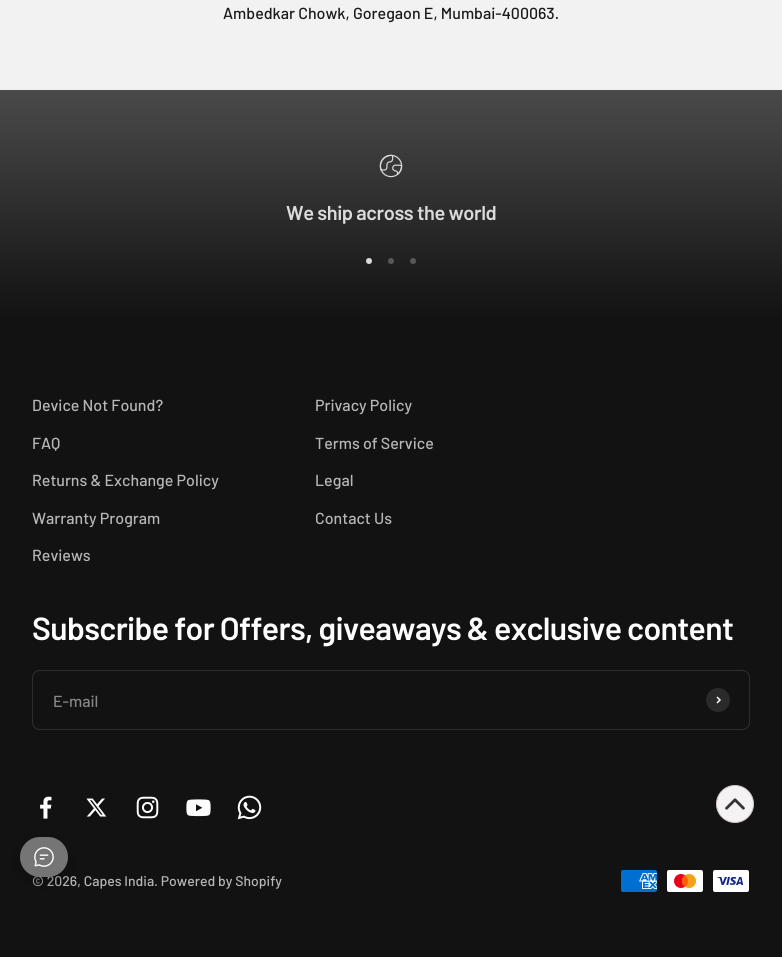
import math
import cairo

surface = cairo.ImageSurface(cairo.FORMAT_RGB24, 782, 957)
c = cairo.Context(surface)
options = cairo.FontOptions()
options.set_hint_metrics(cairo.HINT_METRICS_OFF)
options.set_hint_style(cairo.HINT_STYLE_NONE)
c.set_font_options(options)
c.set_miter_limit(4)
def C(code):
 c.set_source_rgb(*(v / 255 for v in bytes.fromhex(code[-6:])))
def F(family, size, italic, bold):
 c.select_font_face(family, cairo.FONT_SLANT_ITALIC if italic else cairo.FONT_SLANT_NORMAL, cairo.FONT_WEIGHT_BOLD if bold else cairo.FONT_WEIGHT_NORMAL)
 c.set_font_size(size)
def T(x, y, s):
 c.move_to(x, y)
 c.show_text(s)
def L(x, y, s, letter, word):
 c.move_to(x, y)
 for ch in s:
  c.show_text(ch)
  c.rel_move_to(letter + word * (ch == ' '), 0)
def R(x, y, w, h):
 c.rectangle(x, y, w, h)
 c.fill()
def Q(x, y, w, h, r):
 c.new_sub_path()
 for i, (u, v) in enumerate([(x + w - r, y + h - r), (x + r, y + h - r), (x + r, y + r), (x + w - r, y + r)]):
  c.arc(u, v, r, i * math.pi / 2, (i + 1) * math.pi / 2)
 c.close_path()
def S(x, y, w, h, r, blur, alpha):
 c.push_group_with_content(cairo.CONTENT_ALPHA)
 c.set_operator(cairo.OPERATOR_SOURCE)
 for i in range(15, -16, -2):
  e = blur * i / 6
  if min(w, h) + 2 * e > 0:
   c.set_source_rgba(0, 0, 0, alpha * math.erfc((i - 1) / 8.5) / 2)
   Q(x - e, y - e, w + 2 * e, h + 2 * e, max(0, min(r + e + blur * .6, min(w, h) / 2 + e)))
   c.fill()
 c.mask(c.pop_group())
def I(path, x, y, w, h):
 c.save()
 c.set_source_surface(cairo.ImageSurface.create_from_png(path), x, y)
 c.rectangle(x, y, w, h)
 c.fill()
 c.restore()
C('f2f2f2')
c.paint()
F('Barlow Medium',16,0,0)
C('1a1a1a')
T(223,19,'Ambedkar Chowk, Goregaon E, Mumbai-400063.')
gradient = cairo.LinearGradient(391,90,391,328)
gradient.add_color_stop_rgba(0,0.29,0.29,0.29,1)
gradient.add_color_stop_rgba(.96,0.071,0.071,0.071,1)
c.set_source(gradient)
R(0,90,782,238)
I('1.png',379,154,24,24)
F('Barlow SemiBold',20,0,0)
C('dbdbdb')
L(286,220,'We ship across the world',-.4,0)
c.new_path()
c.arc(369,261,3,0,2 * math.pi)
c.fill()
C('585858')
c.arc(391,261,3,0,2 * math.pi)
c.fill()
c.arc(413,261,3,0,2 * math.pi)
c.fill()
C('121212')
R(0,328,782,629)
F('Barlow Medium',16,0,0)
C('b7b7b7')
T(32,411,'Device Not Found?')
T(32,449,'FAQ')
T(32,486,'Returns & Exchange Policy')
T(32,524,'Warranty Program')
T(32,561,'Reviews')
T(315,411,'Privacy Policy')
T(315,449,'Terms of Service')
T(315,486,'Legal')
T(315,524,'Contact Us')
F('Barlow SemiBold',32,0,0)
C('fdfdfd')
L(32,640,'Subscribe for Offers, giveaways & exclusive content',-.65,0)
Q(32.5,670.5,717,59,7.5)
C('2e2e2e')
c.set_line_width(1)
c.stroke()
F('Barlow Medium',16,0,0)
C('888888')
T(53,707,'E-mail')
C('2a2a2a')
c.new_path()
c.arc(718,700,12,0,2 * math.pi)
c.fill()
c.new_path()
c.move_to(717,703)
c.line_to(720,700)
c.line_to(717,697)
C('fdfdfd')
c.set_line_width(1.5)
c.stroke()
I('2.png',40,796,12,23)
I('3.png',86,798,21,19)
I('4.png',136,796,23,23)
I('5.png',186,799,25,18)
I('6.png',237,795,25,25)
F('Barlow Medium',14,0,0)
C('b7b7b7')
T(32,886,'© 2026, Capes India. Powered by Shopify')
I('7.png',621,870,36,22)
I('8.png',667,870,36,22)
I('9.png',713,870,36,22)
C('f4f2f2')
c.arc(735,804,18.5,0,2 * math.pi)
c.fill_preserve()
C('cec5c5')
c.set_line_width(1)
c.stroke()
I('10.png',725,798,20,12)
C('000000')
S(20,842,48,40,20,7.5,.25)
C('757575')
Q(20,837,48,40,20)
c.fill()
I('11.png',34,847,20,20)
surface.write_to_png('o.png')
